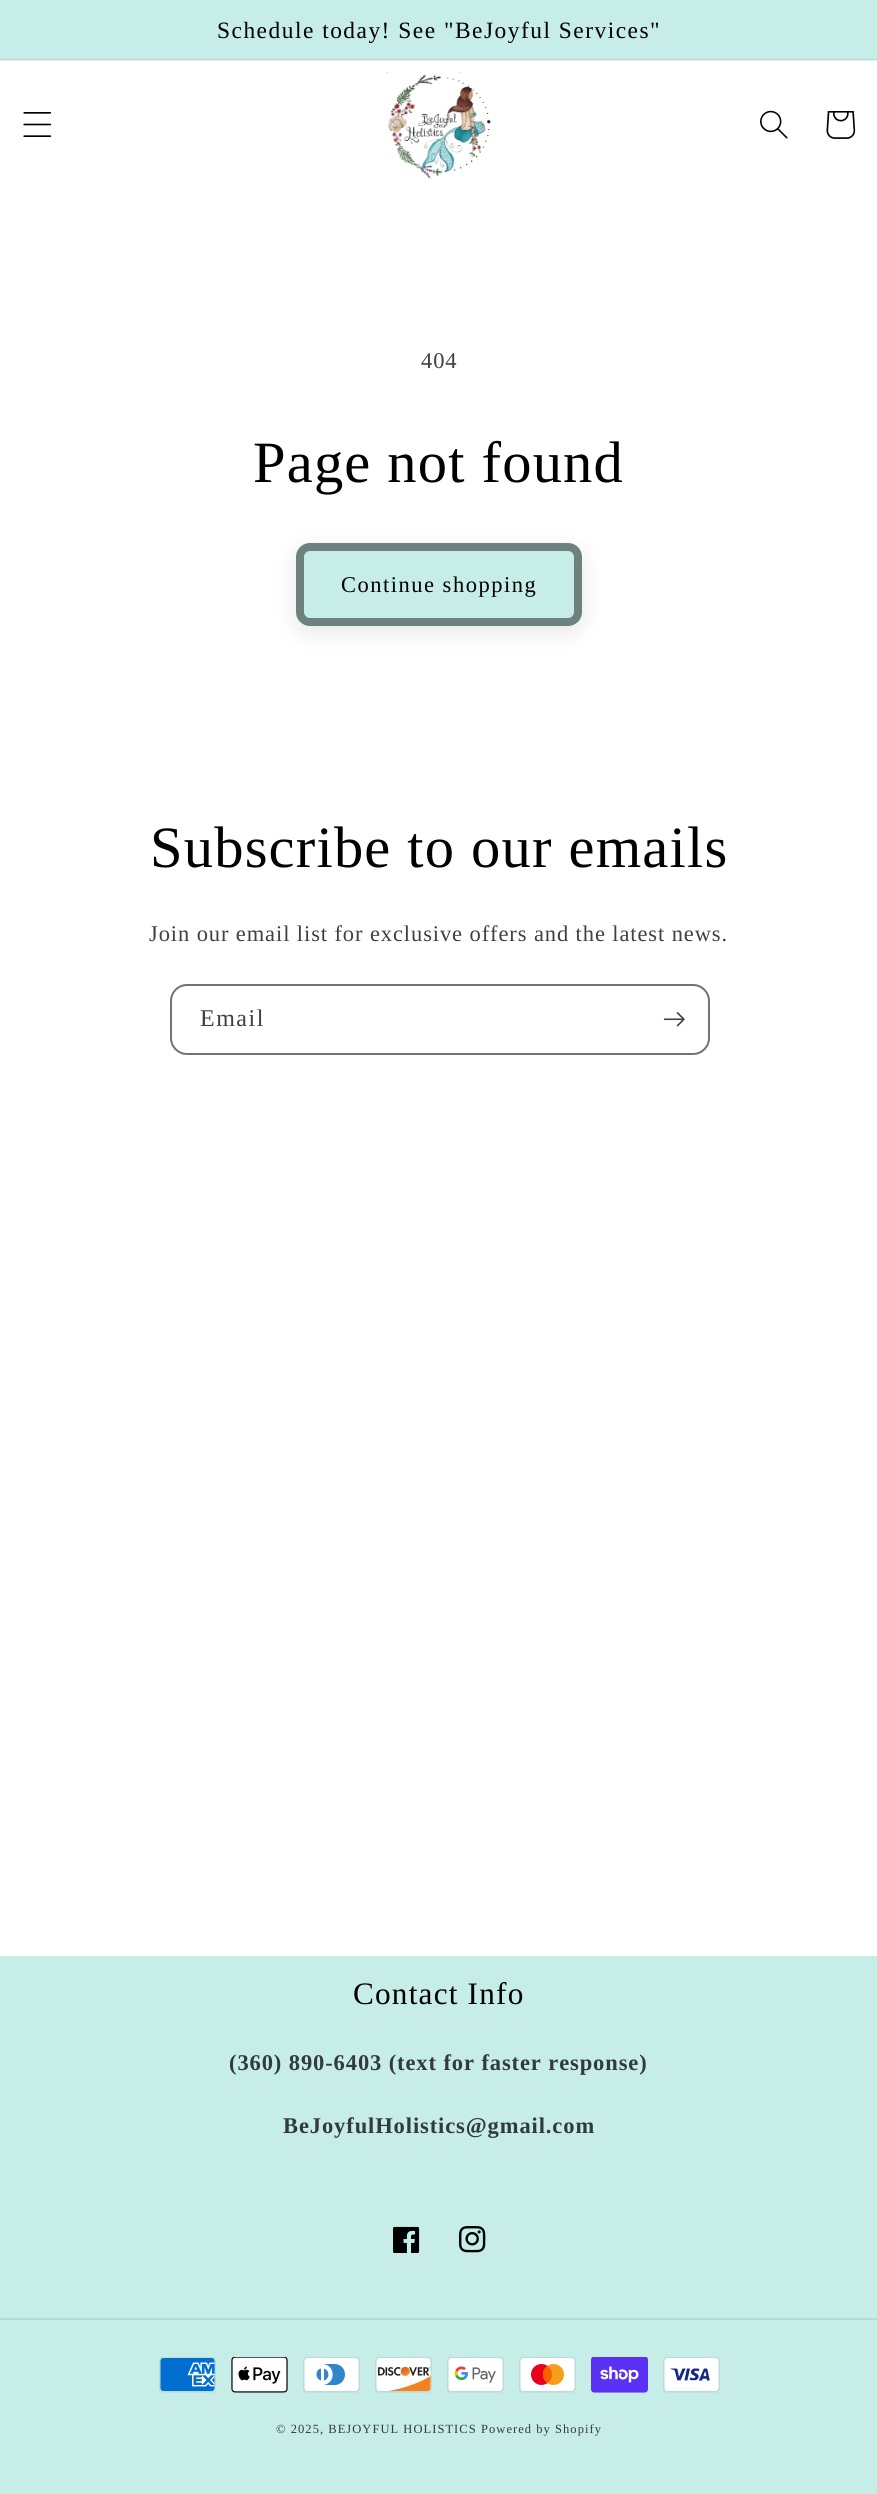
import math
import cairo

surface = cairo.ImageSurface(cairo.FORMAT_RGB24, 877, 2494)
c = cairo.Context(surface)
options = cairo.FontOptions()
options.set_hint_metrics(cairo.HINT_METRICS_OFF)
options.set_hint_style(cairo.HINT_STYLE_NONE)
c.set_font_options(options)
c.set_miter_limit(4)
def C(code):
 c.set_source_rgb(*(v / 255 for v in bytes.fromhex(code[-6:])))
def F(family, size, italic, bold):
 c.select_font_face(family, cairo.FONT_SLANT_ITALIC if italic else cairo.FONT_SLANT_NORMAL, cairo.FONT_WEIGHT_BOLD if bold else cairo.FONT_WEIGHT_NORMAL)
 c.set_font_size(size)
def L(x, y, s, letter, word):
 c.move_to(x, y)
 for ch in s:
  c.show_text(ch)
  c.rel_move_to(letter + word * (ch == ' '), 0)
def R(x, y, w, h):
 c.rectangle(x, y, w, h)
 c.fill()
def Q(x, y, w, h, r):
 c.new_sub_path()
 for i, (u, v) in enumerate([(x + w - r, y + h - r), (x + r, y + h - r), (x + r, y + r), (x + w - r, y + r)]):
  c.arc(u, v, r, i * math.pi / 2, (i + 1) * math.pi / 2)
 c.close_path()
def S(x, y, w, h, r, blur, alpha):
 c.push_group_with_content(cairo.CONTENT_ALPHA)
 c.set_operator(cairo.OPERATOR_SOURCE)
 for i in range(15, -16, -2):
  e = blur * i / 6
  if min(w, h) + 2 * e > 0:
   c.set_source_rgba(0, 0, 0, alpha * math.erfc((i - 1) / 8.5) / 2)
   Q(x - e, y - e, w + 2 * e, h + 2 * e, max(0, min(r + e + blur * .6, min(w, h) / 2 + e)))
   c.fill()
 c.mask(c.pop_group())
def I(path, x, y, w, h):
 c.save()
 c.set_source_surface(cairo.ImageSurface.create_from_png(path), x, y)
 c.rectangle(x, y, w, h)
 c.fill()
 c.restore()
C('ffffff')
c.paint()
C('ebebeb')
R(0,60,877,1)
C('c6ede8')
R(0,0,877,59)
C('b6dad5')
R(0,59,877,1)
F('Liberation Serif',23.4,0,0)
C('000000')
L(217,38,'Schedule today! See "BeJoyful Services"',1.5,0)
I('1.png',23,112,29,25)
I('2.png',387,72,104,107)
I('3.png',760,110,28,29)
I('4.png',826,111,30,28)
F('Liberation Serif',22.5,0,0)
C('404040')
L(421,368,'404',.9,0)
F('Liberation Serif',58.5,0,0)
C('000000')
L(253,482,'Page not found',1.2,0)
C('000000')
S(296,549,286,83,14,11,.1)
C('c6ede8')
Q(296,543,286,83,14)
c.fill()
Q(300,547,278,75,10)
c.set_line_width(8)
c.stroke()
Q(300,547,278,75,10)
c.set_source_rgba(0,0,0,0.45)
c.stroke()
F('Liberation Serif',22.5,0,0)
C('000000')
L(341,592,'Continue shopping',1.5,0)
F('Liberation Serif',58.5,0,0)
L(150,867,'Subscribe to our emails',1.2,0)
F('Liberation Serif',22.5,0,0)
C('404040')
L(149,941,'Join our email list for exclusive offers and the latest news.',.9,0)
Q(171,985,538,69,16)
C('737373')
c.set_line_width(2)
c.stroke()
F('Liberation Serif',24,0,0)
C('404040')
L(200,1026,'Email',1.5,0)
I('5.png',663,1012,22,15)
C('c6ede8')
R(0,1956,877,538)
F('Liberation Serif',31.25,0,0)
C('000000')
L(353,2004,'Contact Info',1.2,0)
F('Liberation Serif',22.5,0,1)
C('323b3a')
L(229,2070,'(360) 890-6403 (text for faster response)',.9,0)
L(283,2133,'BeJoyfulHolistics@gmail.com',.9,0)
I('6.png',393,2226,27,27)
I('7.png',459,2226,27,27)
C('b6dad5')
R(0,2318,877,2)
I('8.png',159,2357,57,36)
I('9.png',231,2357,57,36)
I('10.png',303,2357,57,36)
I('11.png',375,2357,57,36)
I('12.png',447,2357,57,36)
I('13.png',519,2357,57,36)
I('14.png',591,2357,57,36)
I('15.png',663,2357,57,36)
F('Liberation Serif',12.5,0,0)
C('323b3a')
L(276,2433,'© 2025, BEJOYFUL HOLISTICS',1.05,0)
L(481,2433,'Powered by Shopify',1.05,0)
surface.write_to_png('o.png')
